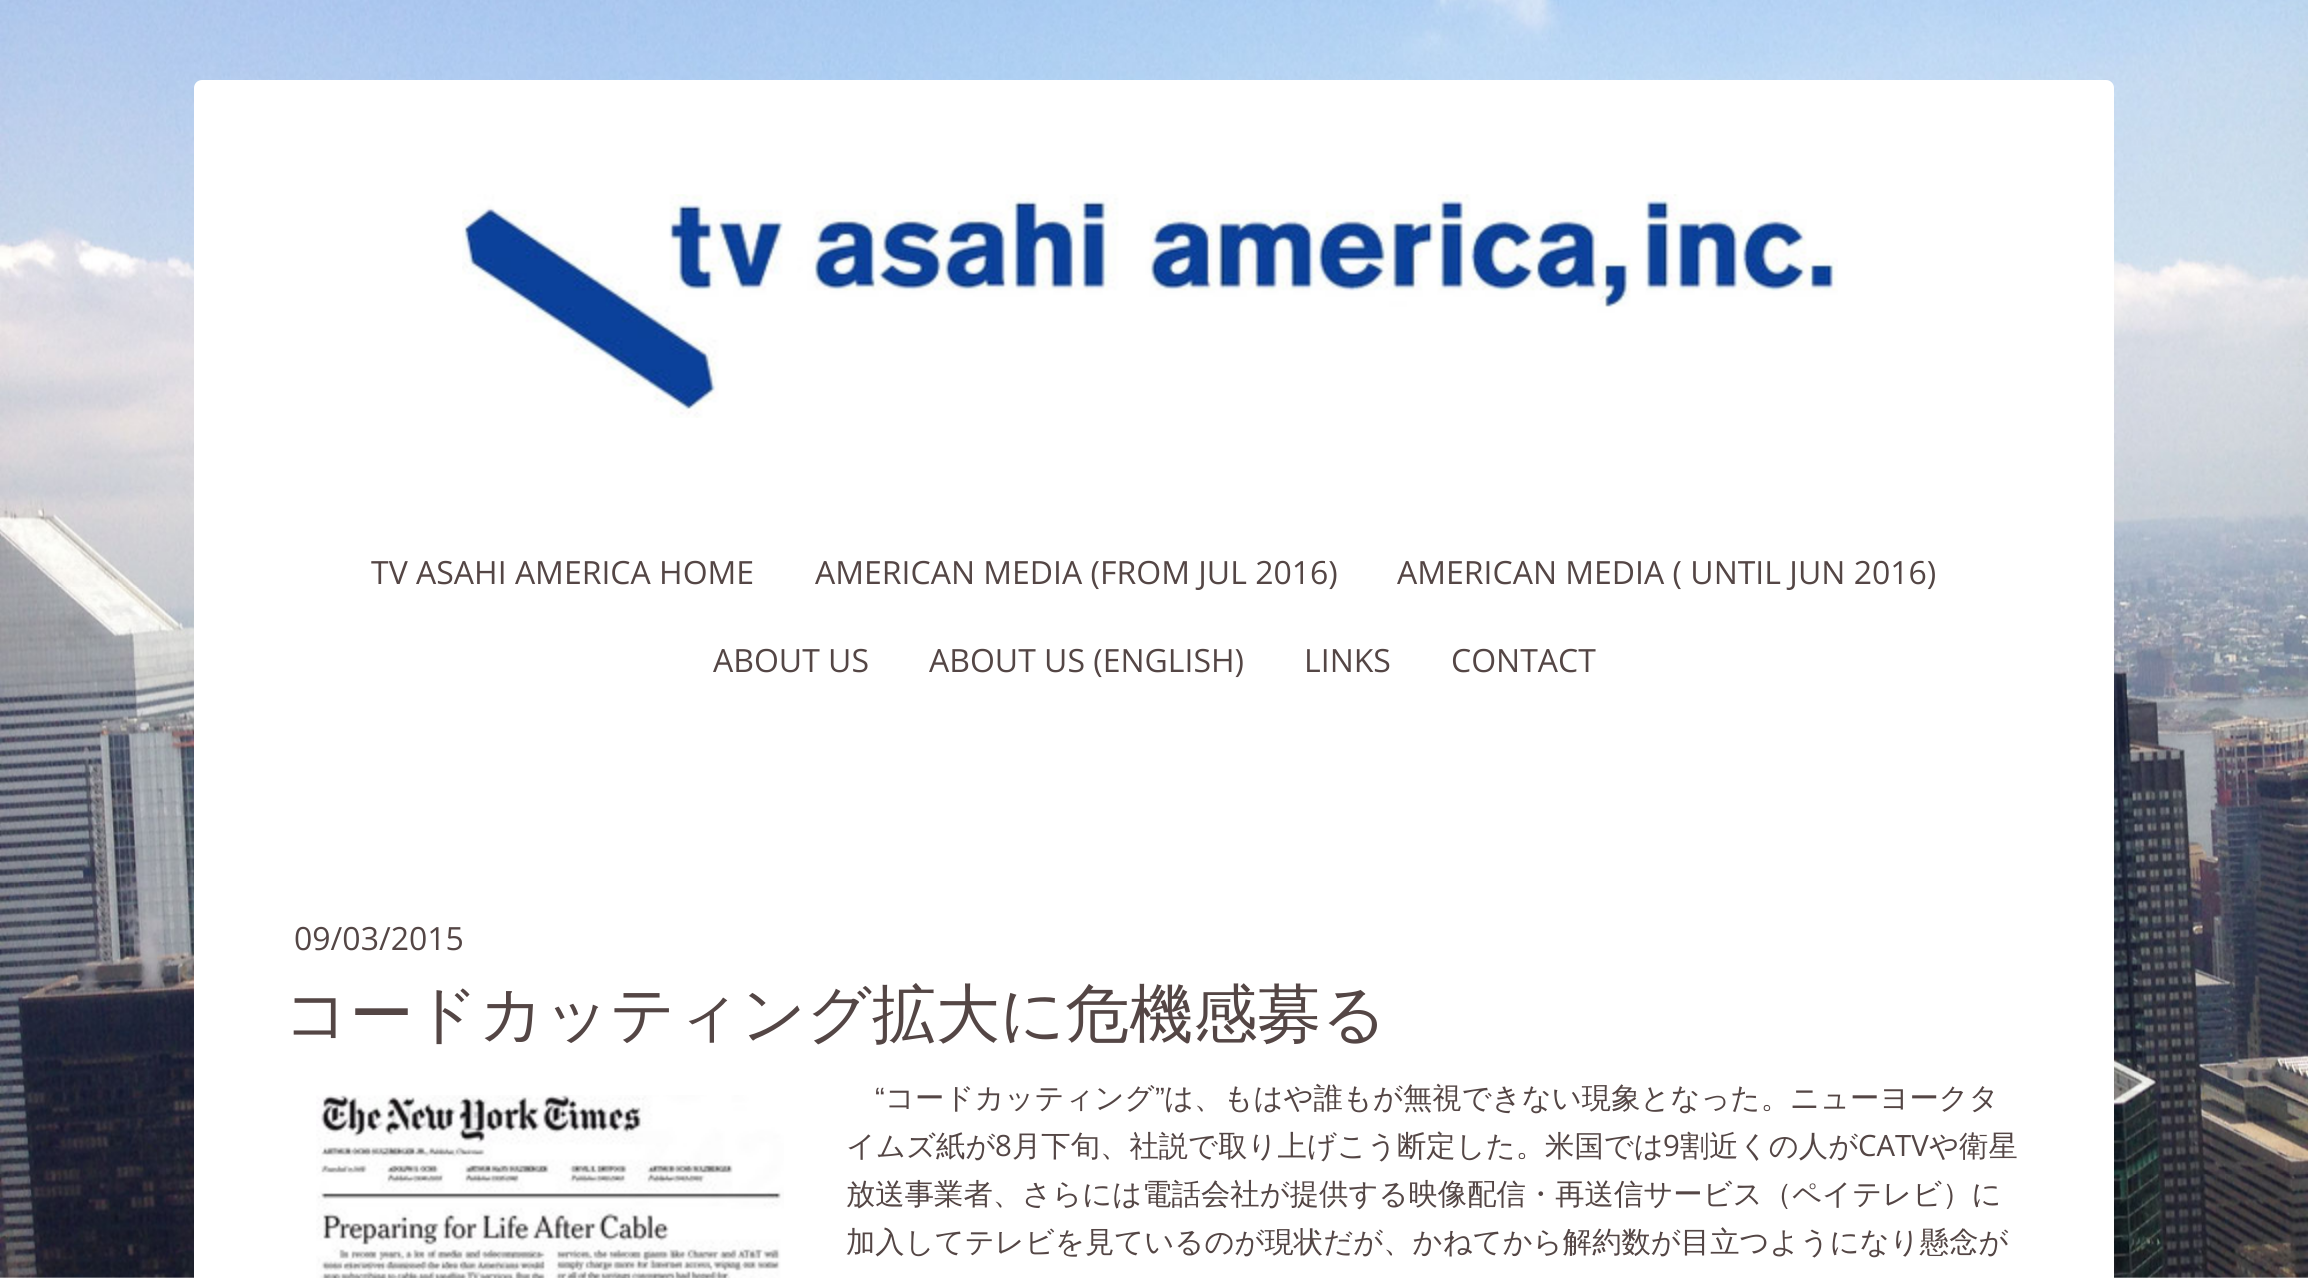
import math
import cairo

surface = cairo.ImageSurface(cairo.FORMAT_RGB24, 2308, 1278)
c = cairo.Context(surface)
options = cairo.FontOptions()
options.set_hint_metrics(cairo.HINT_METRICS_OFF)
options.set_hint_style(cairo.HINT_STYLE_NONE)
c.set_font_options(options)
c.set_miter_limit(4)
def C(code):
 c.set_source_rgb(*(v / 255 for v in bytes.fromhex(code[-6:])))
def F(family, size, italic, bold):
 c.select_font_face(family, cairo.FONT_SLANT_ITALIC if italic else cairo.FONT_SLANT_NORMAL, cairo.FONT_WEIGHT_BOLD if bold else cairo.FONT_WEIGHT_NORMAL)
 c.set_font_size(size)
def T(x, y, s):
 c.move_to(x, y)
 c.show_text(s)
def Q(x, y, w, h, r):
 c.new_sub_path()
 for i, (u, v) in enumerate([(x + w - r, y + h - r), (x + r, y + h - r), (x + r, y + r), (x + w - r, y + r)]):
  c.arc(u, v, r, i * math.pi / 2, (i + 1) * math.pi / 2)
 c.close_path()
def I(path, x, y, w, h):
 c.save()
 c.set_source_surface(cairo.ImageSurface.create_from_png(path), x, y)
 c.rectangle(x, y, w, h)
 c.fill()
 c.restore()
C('ffffff')
c.paint()
I('1.png',0,0,2308,1278)
C('ffffff')
Q(194,80,1920,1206,8)
c.fill()
I('2.png',462,194,1376,224)
F('Open Sans',32,0,0)
C('544645')
T(371,584,'TV ASAHI AMERICA HOME')
T(815,584,'AMERICAN MEDIA (FROM JUL 2016)')
T(1397,584,'AMERICAN MEDIA ( UNTIL JUN 2016)')
T(713,672,'ABOUT US')
T(929,672,'ABOUT US (ENGLISH)')
T(1304,672,'LINKS')
T(1451,672,'CONTACT')
T(294,950,'09/03/2015')
F('WenQuanYi Zen Hei Medium',64,0,0)
T(284,1036,'コードカッティング拡大に危機感募る')
I('3.png',316,1095,468,183)
F('Liberation Sans',29.35,0,0)
T(875,1108,'“')
F('WenQuanYi Zen Hei Medium',29.35,0,0)
T(885,1108,'コードカッティング')
F('Liberation Sans',29.35,0,0)
T(1155,1108,'”')
F('WenQuanYi Zen Hei Medium',29.35,0,0)
T(1164,1108,'は、もはや誰もが無視できない現象となった。ニューヨークタ')
T(846,1156,'イムズ紙が')
F('Open Sans',29.35,0,0)
T(995,1156,'8')
F('WenQuanYi Zen Hei Medium',29.35,0,0)
T(1012,1156,'月下旬、社説で取り上げこう断定した。米国では')
F('Open Sans',29.35,0,0)
T(1663,1156,'9')
F('WenQuanYi Zen Hei Medium',29.35,0,0)
T(1680,1156,'割近くの人が')
F('Open Sans',29.35,0,0)
T(1858,1156,'CATV')
F('WenQuanYi Zen Hei Medium',29.35,0,0)
T(1929,1156,'や衛星')
T(846,1204,'放送事業者、さらには電話会社が提供する映像配信・再送信サービス（ペイテレビ）に')
T(846,1252,'加入してテレビを見ているのが現状だが、かねてから解約数が目立つようになり懸念が')
surface.write_to_png('o.png')
